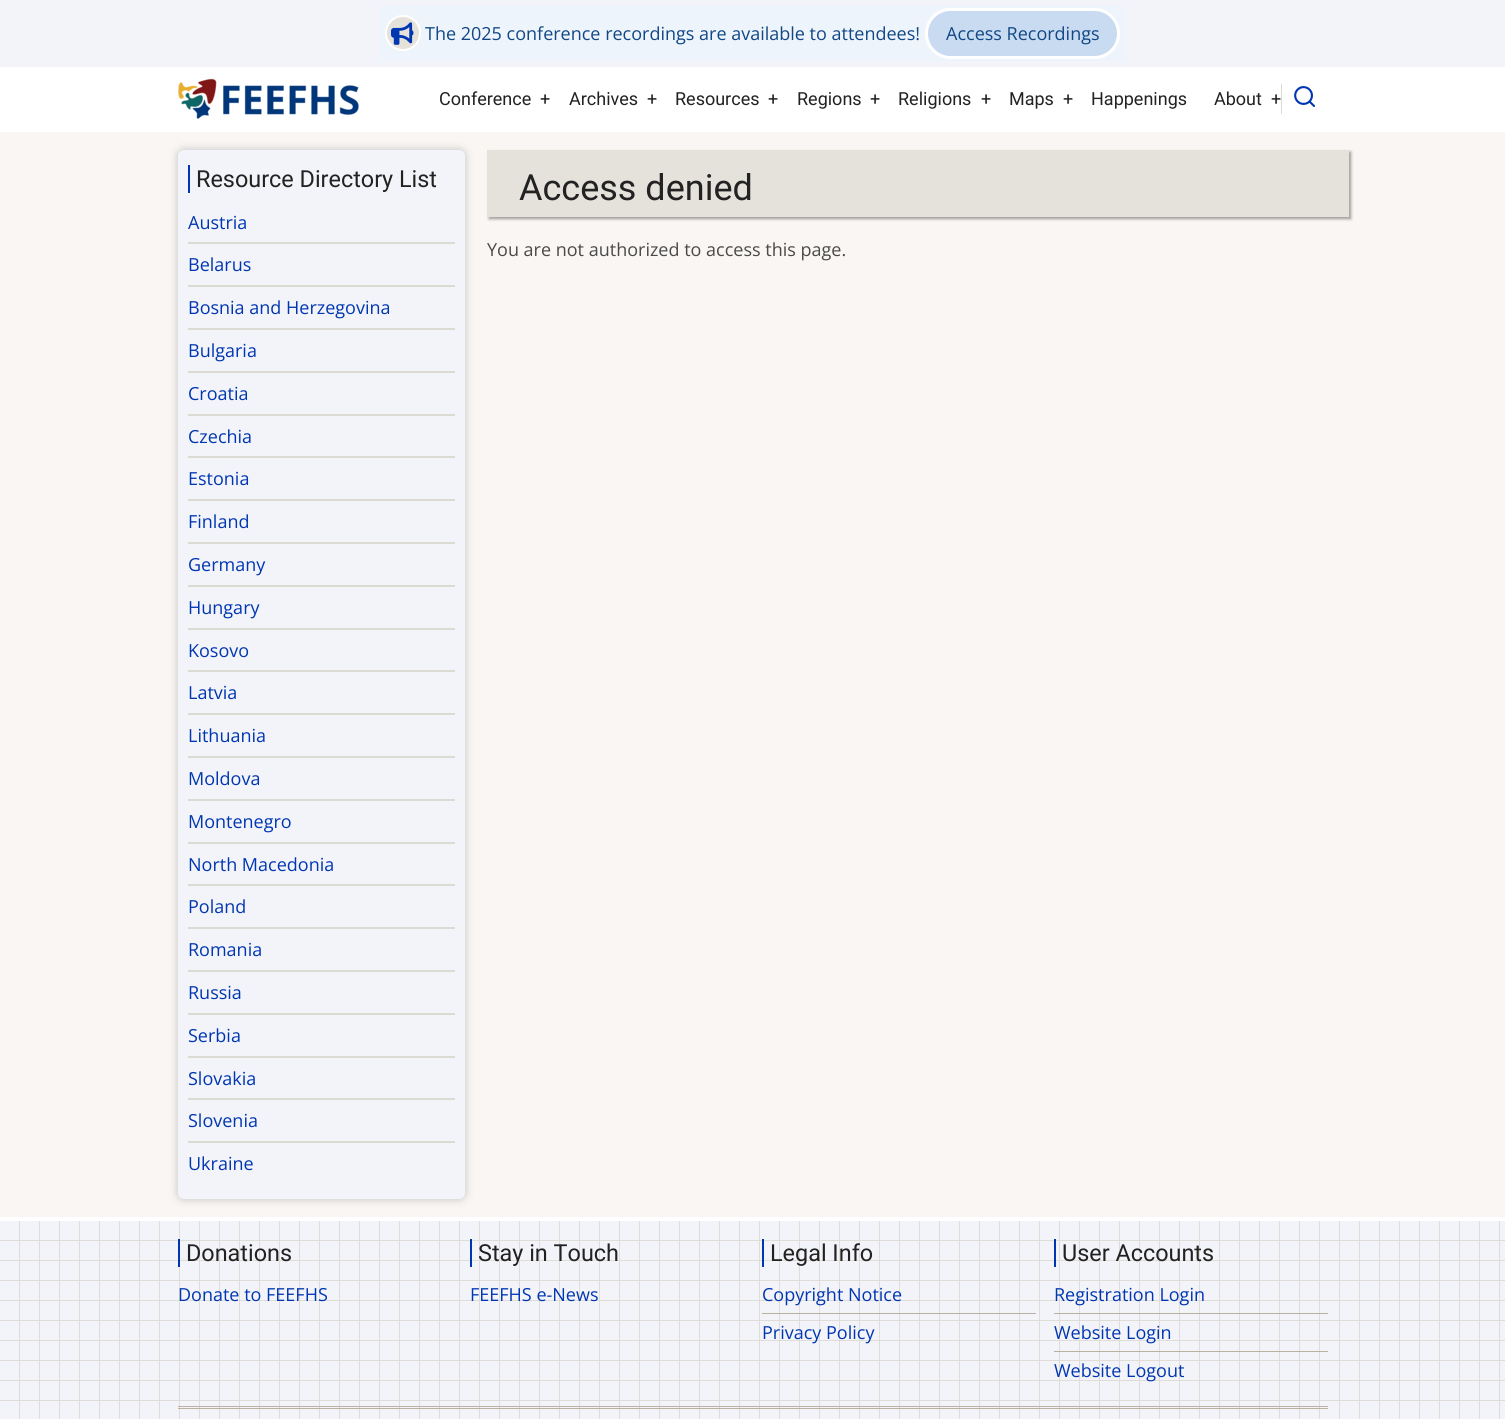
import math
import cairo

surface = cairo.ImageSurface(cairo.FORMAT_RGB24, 1505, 1419)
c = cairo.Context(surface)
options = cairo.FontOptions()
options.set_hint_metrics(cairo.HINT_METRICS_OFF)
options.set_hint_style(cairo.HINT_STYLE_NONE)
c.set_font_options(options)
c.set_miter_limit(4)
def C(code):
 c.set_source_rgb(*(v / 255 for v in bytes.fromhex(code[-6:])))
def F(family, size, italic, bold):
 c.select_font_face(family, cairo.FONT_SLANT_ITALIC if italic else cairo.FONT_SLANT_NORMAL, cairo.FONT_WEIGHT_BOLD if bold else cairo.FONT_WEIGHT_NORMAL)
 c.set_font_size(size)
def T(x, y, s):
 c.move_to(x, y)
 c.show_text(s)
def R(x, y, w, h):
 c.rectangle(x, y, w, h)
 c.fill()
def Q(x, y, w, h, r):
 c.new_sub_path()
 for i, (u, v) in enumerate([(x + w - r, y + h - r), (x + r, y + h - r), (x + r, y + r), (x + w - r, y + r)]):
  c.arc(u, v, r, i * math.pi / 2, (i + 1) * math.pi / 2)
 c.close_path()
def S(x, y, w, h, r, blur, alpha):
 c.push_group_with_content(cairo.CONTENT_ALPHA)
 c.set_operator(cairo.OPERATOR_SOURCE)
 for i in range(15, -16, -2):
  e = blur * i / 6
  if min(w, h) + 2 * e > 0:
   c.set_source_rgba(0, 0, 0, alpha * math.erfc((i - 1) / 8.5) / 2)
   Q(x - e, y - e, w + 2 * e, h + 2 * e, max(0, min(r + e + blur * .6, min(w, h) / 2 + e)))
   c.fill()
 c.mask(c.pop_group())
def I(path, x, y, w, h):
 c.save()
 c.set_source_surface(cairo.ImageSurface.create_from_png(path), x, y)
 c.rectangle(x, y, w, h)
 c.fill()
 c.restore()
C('f9f6f3')
c.paint()
C('f3f4f9')
R(0,0,1505,67)
C('eef4fb')
R(379,6,747,55)
C('e5e2dc')
c.arc(403,33,17,0,2 * math.pi)
c.fill_preserve()
C('ffffff')
c.stroke()
I('1.png',391,22,23,23)
F('Open Sans',18,0,0)
C('114785')
T(425,40,'The 2025 conference recordings are available to attendees!')
C('c8dbf1')
Q(926.5,9.5,192,48,24)
c.fill_preserve()
C('ffffff')
c.set_line_width(3)
c.stroke()
C('114785')
T(946,40,'Access Recordings')
C('ffffff')
R(0,67,1505,65)
I('2.png',178,78,181,41)
F('Roboto',18,0,0)
C('222222')
T(439,105,'Conference')
T(540,105,'+')
T(569,105,'Archives')
T(647,105,'+')
T(675,105,'Resources')
T(768,105,'+')
T(797,105,'Regions')
T(870,105,'+')
T(898,105,'Religions')
T(981,105,'+')
T(1009,105,'Maps')
T(1063,105,'+')
T(1091,105,'Happenings')
T(1214,105,'About')
T(1271,105,'+')
C('dbdbd3')
R(1281,84,1,30)
I('3.png',1294,86,21,21)
C('cccccc')
S(177,149,289,1051,7,4,1)
C('f3f4f9')
Q(178,150,287,1049,6)
c.fill()
C('0036b1')
R(188,165,2,28)
F('Roboto',23.4,0,0)
C('222222')
T(196,187,'Resource Directory List')
C('dbdbd3')
R(188,242,267,2)
F('Open Sans',18,0,0)
C('0036b1')
T(188,229,'Austria')
C('dbdbd3')
R(188,285,267,2)
C('0036b1')
T(188,271,'Belarus')
C('dbdbd3')
R(188,328,267,2)
C('0036b1')
T(188,314,'Bosnia and Herzegovina')
C('dbdbd3')
R(188,371,267,2)
C('0036b1')
T(188,357,'Bulgaria')
C('dbdbd3')
R(188,414,267,2)
C('0036b1')
T(188,400,'Croatia')
C('dbdbd3')
R(188,456,267,2)
C('0036b1')
T(188,443,'Czechia')
C('dbdbd3')
R(188,499,267,2)
C('0036b1')
T(188,485,'Estonia')
C('dbdbd3')
R(188,542,267,2)
C('0036b1')
T(188,528,'Finland')
C('dbdbd3')
R(188,585,267,2)
C('0036b1')
T(188,571,'Germany')
C('dbdbd3')
R(188,628,267,2)
C('0036b1')
T(188,614,'Hungary')
C('dbdbd3')
R(188,670,267,2)
C('0036b1')
T(188,657,'Kosovo')
C('dbdbd3')
R(188,713,267,2)
C('0036b1')
T(188,699,'Latvia')
C('dbdbd3')
R(188,756,267,2)
C('0036b1')
T(188,742,'Lithuania')
C('dbdbd3')
R(188,799,267,2)
C('0036b1')
T(188,785,'Moldova')
C('dbdbd3')
R(188,842,267,2)
C('0036b1')
T(188,828,'Montenegro')
C('dbdbd3')
R(188,884,267,2)
C('0036b1')
T(188,871,'North Macedonia')
C('dbdbd3')
R(188,927,267,2)
C('0036b1')
T(188,913,'Poland')
C('dbdbd3')
R(188,970,267,2)
C('0036b1')
T(188,956,'Romania')
C('dbdbd3')
R(188,1013,267,2)
C('0036b1')
T(188,999,'Russia')
C('dbdbd3')
R(188,1056,267,2)
C('0036b1')
T(188,1042,'Serbia')
C('dbdbd3')
R(188,1098,267,2)
C('0036b1')
T(188,1085,'Slovakia')
C('dbdbd3')
R(188,1141,267,2)
C('0036b1')
T(188,1127,'Slovenia')
T(188,1170,'Ukraine')
C('000000')
S(489,152,862,67,0,1.5,.25)
S(489,152,862,67,0,1.5,.15)
C('e5e2dc')
R(487,150,862,67)
F('Roboto',36,0,0)
C('222222')
T(519,200,'Access denied')
F('Open Sans',18,0,0)
C('4a4a4a')
T(487,256,'You are not authorized to access this page.')
C('f3f4f9')
R(0,1221,1505,198)
I('4.png',0,1221,1505,198)
C('ffffff')
R(0,1217,1505,4)
C('0036b1')
R(178,1239,2,28)
F('Roboto',23.4,0,0)
C('222222')
T(186,1261,'Donations')
F('Open Sans',18,0,0)
C('0036b1')
T(178,1301,'Donate to FEEFHS')
R(470,1239,2,28)
F('Roboto',23.4,0,0)
C('222222')
T(478,1261,'Stay in Touch')
F('Open Sans',18,0,0)
C('0036b1')
T(470,1301,'FEEFHS e-News')
R(762,1239,2,28)
F('Roboto',23.4,0,0)
C('222222')
T(770,1261,'Legal Info')
C('bbb0a1')
R(762,1313,274,1)
F('Open Sans',18,0,0)
C('0036b1')
T(762,1301,'Copyright Notice')
T(762,1339,'Privacy Policy')
R(1054,1239,2,28)
F('Roboto',23.4,0,0)
C('222222')
T(1062,1261,'User Accounts')
C('bbb0a1')
R(1054,1313,274,1)
F('Open Sans',18,0,0)
C('0036b1')
T(1054,1301,'Registration Login')
C('bbb0a1')
R(1054,1351,274,1)
C('0036b1')
T(1054,1339,'Website Login')
T(1054,1377,'Website Logout')
C('bbb0a1')
R(178,1406,1150,1)
R(178,1408,1150,1)
surface.write_to_png('o.png')
